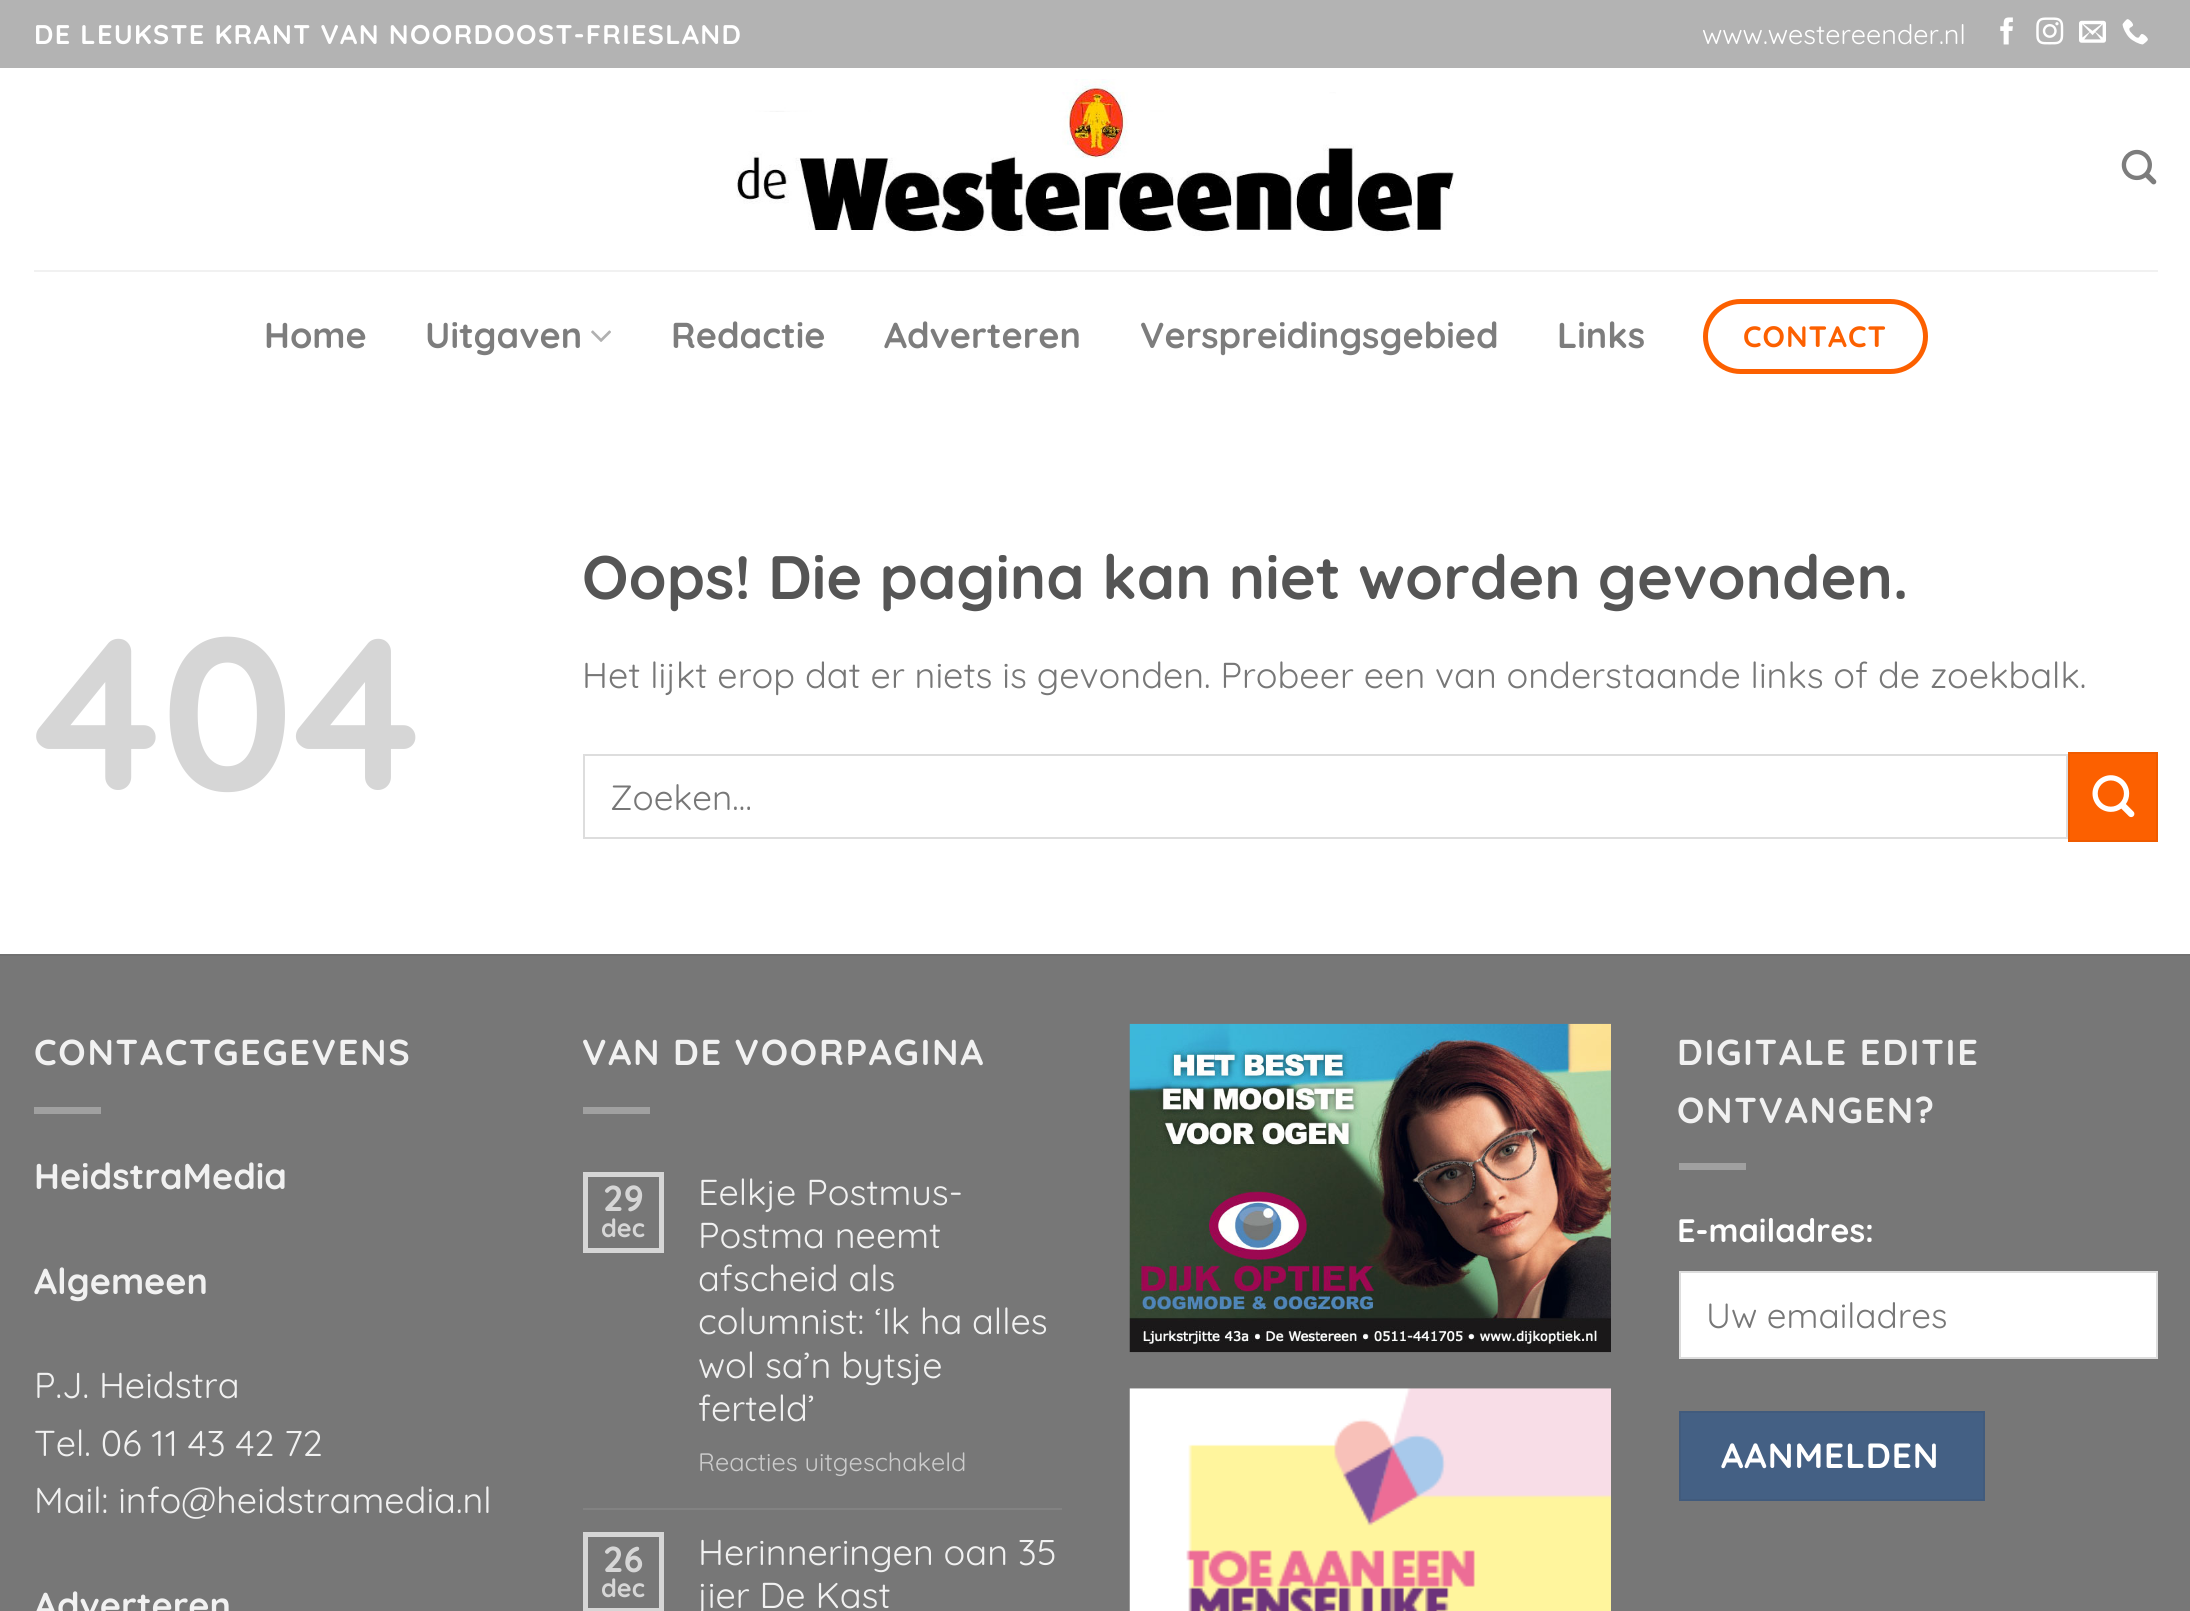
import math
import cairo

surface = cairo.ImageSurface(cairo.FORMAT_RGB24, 2190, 1611)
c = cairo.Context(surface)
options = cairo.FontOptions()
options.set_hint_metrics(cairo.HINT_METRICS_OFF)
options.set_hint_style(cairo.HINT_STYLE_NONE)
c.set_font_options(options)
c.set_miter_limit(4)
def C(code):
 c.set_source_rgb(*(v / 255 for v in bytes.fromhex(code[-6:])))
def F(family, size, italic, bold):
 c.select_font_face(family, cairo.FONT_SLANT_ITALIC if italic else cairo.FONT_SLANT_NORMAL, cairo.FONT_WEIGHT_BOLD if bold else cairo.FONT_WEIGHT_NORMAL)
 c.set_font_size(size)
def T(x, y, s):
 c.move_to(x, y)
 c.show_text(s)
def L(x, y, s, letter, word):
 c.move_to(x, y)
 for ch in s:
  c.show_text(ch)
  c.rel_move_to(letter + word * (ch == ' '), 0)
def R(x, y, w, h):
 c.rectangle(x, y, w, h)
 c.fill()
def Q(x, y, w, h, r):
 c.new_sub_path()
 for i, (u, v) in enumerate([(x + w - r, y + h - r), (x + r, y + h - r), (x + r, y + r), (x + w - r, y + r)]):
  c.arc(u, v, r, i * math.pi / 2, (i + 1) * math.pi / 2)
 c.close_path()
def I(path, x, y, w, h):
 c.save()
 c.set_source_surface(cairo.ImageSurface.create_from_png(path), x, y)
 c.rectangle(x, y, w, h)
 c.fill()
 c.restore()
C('ffffff')
c.paint()
C('b3b3b3')
R(0,0,2190,68)
F('Quicksand',27,0,1)
C('ffffff')
L(34,44,'DE LEUKSTE KRANT VAN NOORDOOST-FRIESLAND',1.35,0)
F('Quicksand',27,0,0)
T(1702,44,'www.westereender.nl')
I('1.png',2000,17,13,28)
I('2.png',2036,17,28,28)
I('3.png',2079,20,27,23)
I('4.png',2122,19,26,26)
I('5.png',736,79,718,157)
I('6.png',2121,149,36,36)
C('f1f1f1')
R(34,270,2124,2)
F('Quicksand',36,0,1)
C('7d7d7d')
T(264,348,'Home')
T(425,348,'Uitgaven')
I('7.png',591,330,20,12)
T(671,348,'Redactie')
T(884,348,'Adverteren')
T(1140,348,'Verspreidingsgebied')
T(1557,348,'Links')
Q(1705.5,301.5,220,70,35)
C('fc6000')
c.set_line_width(5)
c.stroke()
F('Quicksand',29.5,0,1)
L(1743,347,'CONTACT',1,0)
F('Quicksand',216,0,1)
C('d6d6d6')
T(34,790,'404')
F('Quicksand',61.2,0,1)
C('555555')
T(582,599,'Oops! Die pagina kan niet worden gevonden.')
F('Quicksand',36,0,0)
C('777777')
T(582,688,'Het lijkt erop dat er niets is gevonden. Probeer een van onderstaande links of de zoekbalk.')
c.rectangle(584,755,1483,83)
C('dddddd')
c.set_line_width(2)
c.stroke()
F('Quicksand',35,0,0)
C('777777')
T(610,810,'Zoeken…')
C('fc6000')
c.rectangle(2069,753,88,88)
c.fill_preserve()
C('ef5b00')
c.stroke()
I('8.png',2092,775,43,43)
C('777777')
R(0,956,2190,655)
C('717171')
R(0,954,2190,2)
F('Quicksand',36,0,1)
C('f1f1f1')
L(34,1065,'CONTACTGEGEVENS',1.75,0)
C('a0a0a0')
R(34,1107,67,7)
C('f1f1f1')
T(34,1189,'HeidstraMedia')
T(34,1294,'Algemeen')
F('Quicksand',36,0,0)
T(34,1398,'P.J. Heidstra')
T(34,1456,'Tel. 06 11 43 42 72')
T(34,1513,'Mail: info@heidstramedia.nl')
F('Quicksand',36,0,1)
T(34,1618,'Adverteren')
L(582,1065,'VAN DE VOORPAGINA',1.75,0)
C('a0a0a0')
R(583,1107,67,7)
c.rectangle(585.5,1174.5,76,76)
C('d6d6d6')
c.set_line_width(5)
c.stroke()
T(603,1211,'29')
F('Quicksand',25.25,0,1)
T(601,1237,'dec')
F('Quicksand',36,0,0)
C('f1f1f1')
T(698,1205,'Eelkje Postmus-')
T(698,1248,'Postma neemt')
T(698,1291,'afscheid als')
T(698,1334,'columnist: ‘Ik ha alles')
T(698,1378,'wol sa’n bytsje')
T(698,1421,'ferteld’')
F('Quicksand',25.25,0,0)
C('cccccc')
T(698,1471,'Reacties uitgeschakeld')
C('828282')
R(583,1508,479,2)
c.rectangle(585.5,1534.5,76,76)
C('d6d6d6')
c.stroke()
F('Quicksand',36,0,1)
T(603,1572,'26')
F('Quicksand',25.25,0,1)
T(601,1597,'dec')
F('Quicksand',36,0,0)
C('f1f1f1')
T(698,1565,'Herinneringen oan 35')
T(698,1608,'jier De Kast')
I('9.png',1129,1023,482,330)
I('10.png',1129,1388,482,223)
F('Quicksand',36,0,1)
L(1677,1065,'DIGITALE EDITIE',1.75,0)
L(1677,1123,'ONTVANGEN?',1.75,0)
C('a0a0a0')
R(1679,1163,67,7)
F('Quicksand',32.5,0,1)
C('ffffff')
T(1677,1242,'E-mailadres:')
c.rectangle(1680,1272,477,86)
c.fill_preserve()
C('dddddd')
c.set_line_width(2)
c.stroke()
F('Quicksand',35,0,0)
C('777777')
T(1706,1328,'Uw emailadres')
C('446084')
c.rectangle(1680,1412,304,88)
c.fill_preserve()
C('415b7d')
c.stroke()
F('Quicksand',35,0,1)
C('ffffff')
L(1721,1468,'AANMELDEN',1,0)
surface.write_to_png('o.png')
